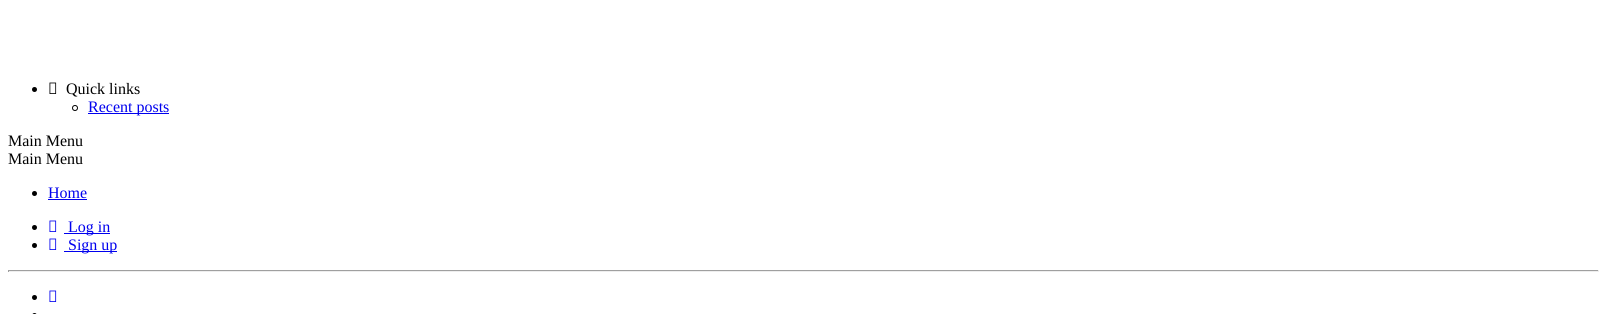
import math
import cairo

surface = cairo.ImageSurface(cairo.FORMAT_RGB24, 1607, 314)
c = cairo.Context(surface)
options = cairo.FontOptions()
options.set_hint_metrics(cairo.HINT_METRICS_OFF)
options.set_hint_style(cairo.HINT_STYLE_NONE)
c.set_font_options(options)
c.set_miter_limit(4)
def C(code):
 c.set_source_rgb(*(v / 255 for v in bytes.fromhex(code[-6:])))
def F(family, size, italic, bold):
 c.select_font_face(family, cairo.FONT_SLANT_ITALIC if italic else cairo.FONT_SLANT_NORMAL, cairo.FONT_WEIGHT_BOLD if bold else cairo.FONT_WEIGHT_NORMAL)
 c.set_font_size(size)
def T(x, y, s):
 c.move_to(x, y)
 c.show_text(s)
def R(x, y, w, h):
 c.rectangle(x, y, w, h)
 c.fill()
def Q(x, y, w, h, r):
 c.new_sub_path()
 for i, (u, v) in enumerate([(x + w - r, y + h - r), (x + r, y + h - r), (x + r, y + r), (x + w - r, y + r)]):
  c.arc(u, v, r, i * math.pi / 2, (i + 1) * math.pi / 2)
 c.close_path()
def I(path, x, y, w, h):
 c.save()
 c.set_source_surface(cairo.ImageSurface.create_from_png(path), x, y)
 c.rectangle(x, y, w, h)
 c.fill()
 c.restore()
C('ffffff')
c.paint()
C('000000')
c.arc(34.5,89.5,2.5,0,2 * math.pi)
c.fill()
I('1.png',49,82,8,12)
F('Liberation Serif',16,0,0)
T(66,94,'Quick links')
c.new_path()
c.arc(75,108,2.5,0,2 * math.pi)
c.set_line_width(1)
c.stroke()
C('0000ee')
R(88,113,81,1)
T(88,112,'Recent posts')
C('000000')
T(8,146,'Main Menu')
T(8,164,'Main Menu')
c.new_path()
c.arc(34.5,193.5,2.5,0,2 * math.pi)
c.fill()
C('0000ee')
T(48,198,'Home')
R(48,199,39,1)
C('000000')
c.new_path()
c.arc(34.5,227.5,2.5,0,2 * math.pi)
c.fill()
I('2.png',49,220,8,12)
C('0000ee')
R(64,233,46,1)
T(68,232,'Log in')
C('000000')
c.new_path()
c.arc(34.5,245.5,2.5,0,2 * math.pi)
c.fill()
I('2.png',49,238,8,12)
C('0000ee')
R(64,251,53,1)
T(68,250,'Sign up')
C('9f9f9f')
R(8,270,1591,1)
C('eeeeee')
R(1598,270,1,2)
R(8,271,1591,1)
C('9f9f9f')
R(8,270,1,2)
C('000000')
c.new_path()
c.arc(34.5,297.5,2.5,0,2 * math.pi)
c.fill()
I('2.png',49,290,8,12)
Q(32,313,5,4,2.5)
c.fill()
surface.write_to_png('o.png')
